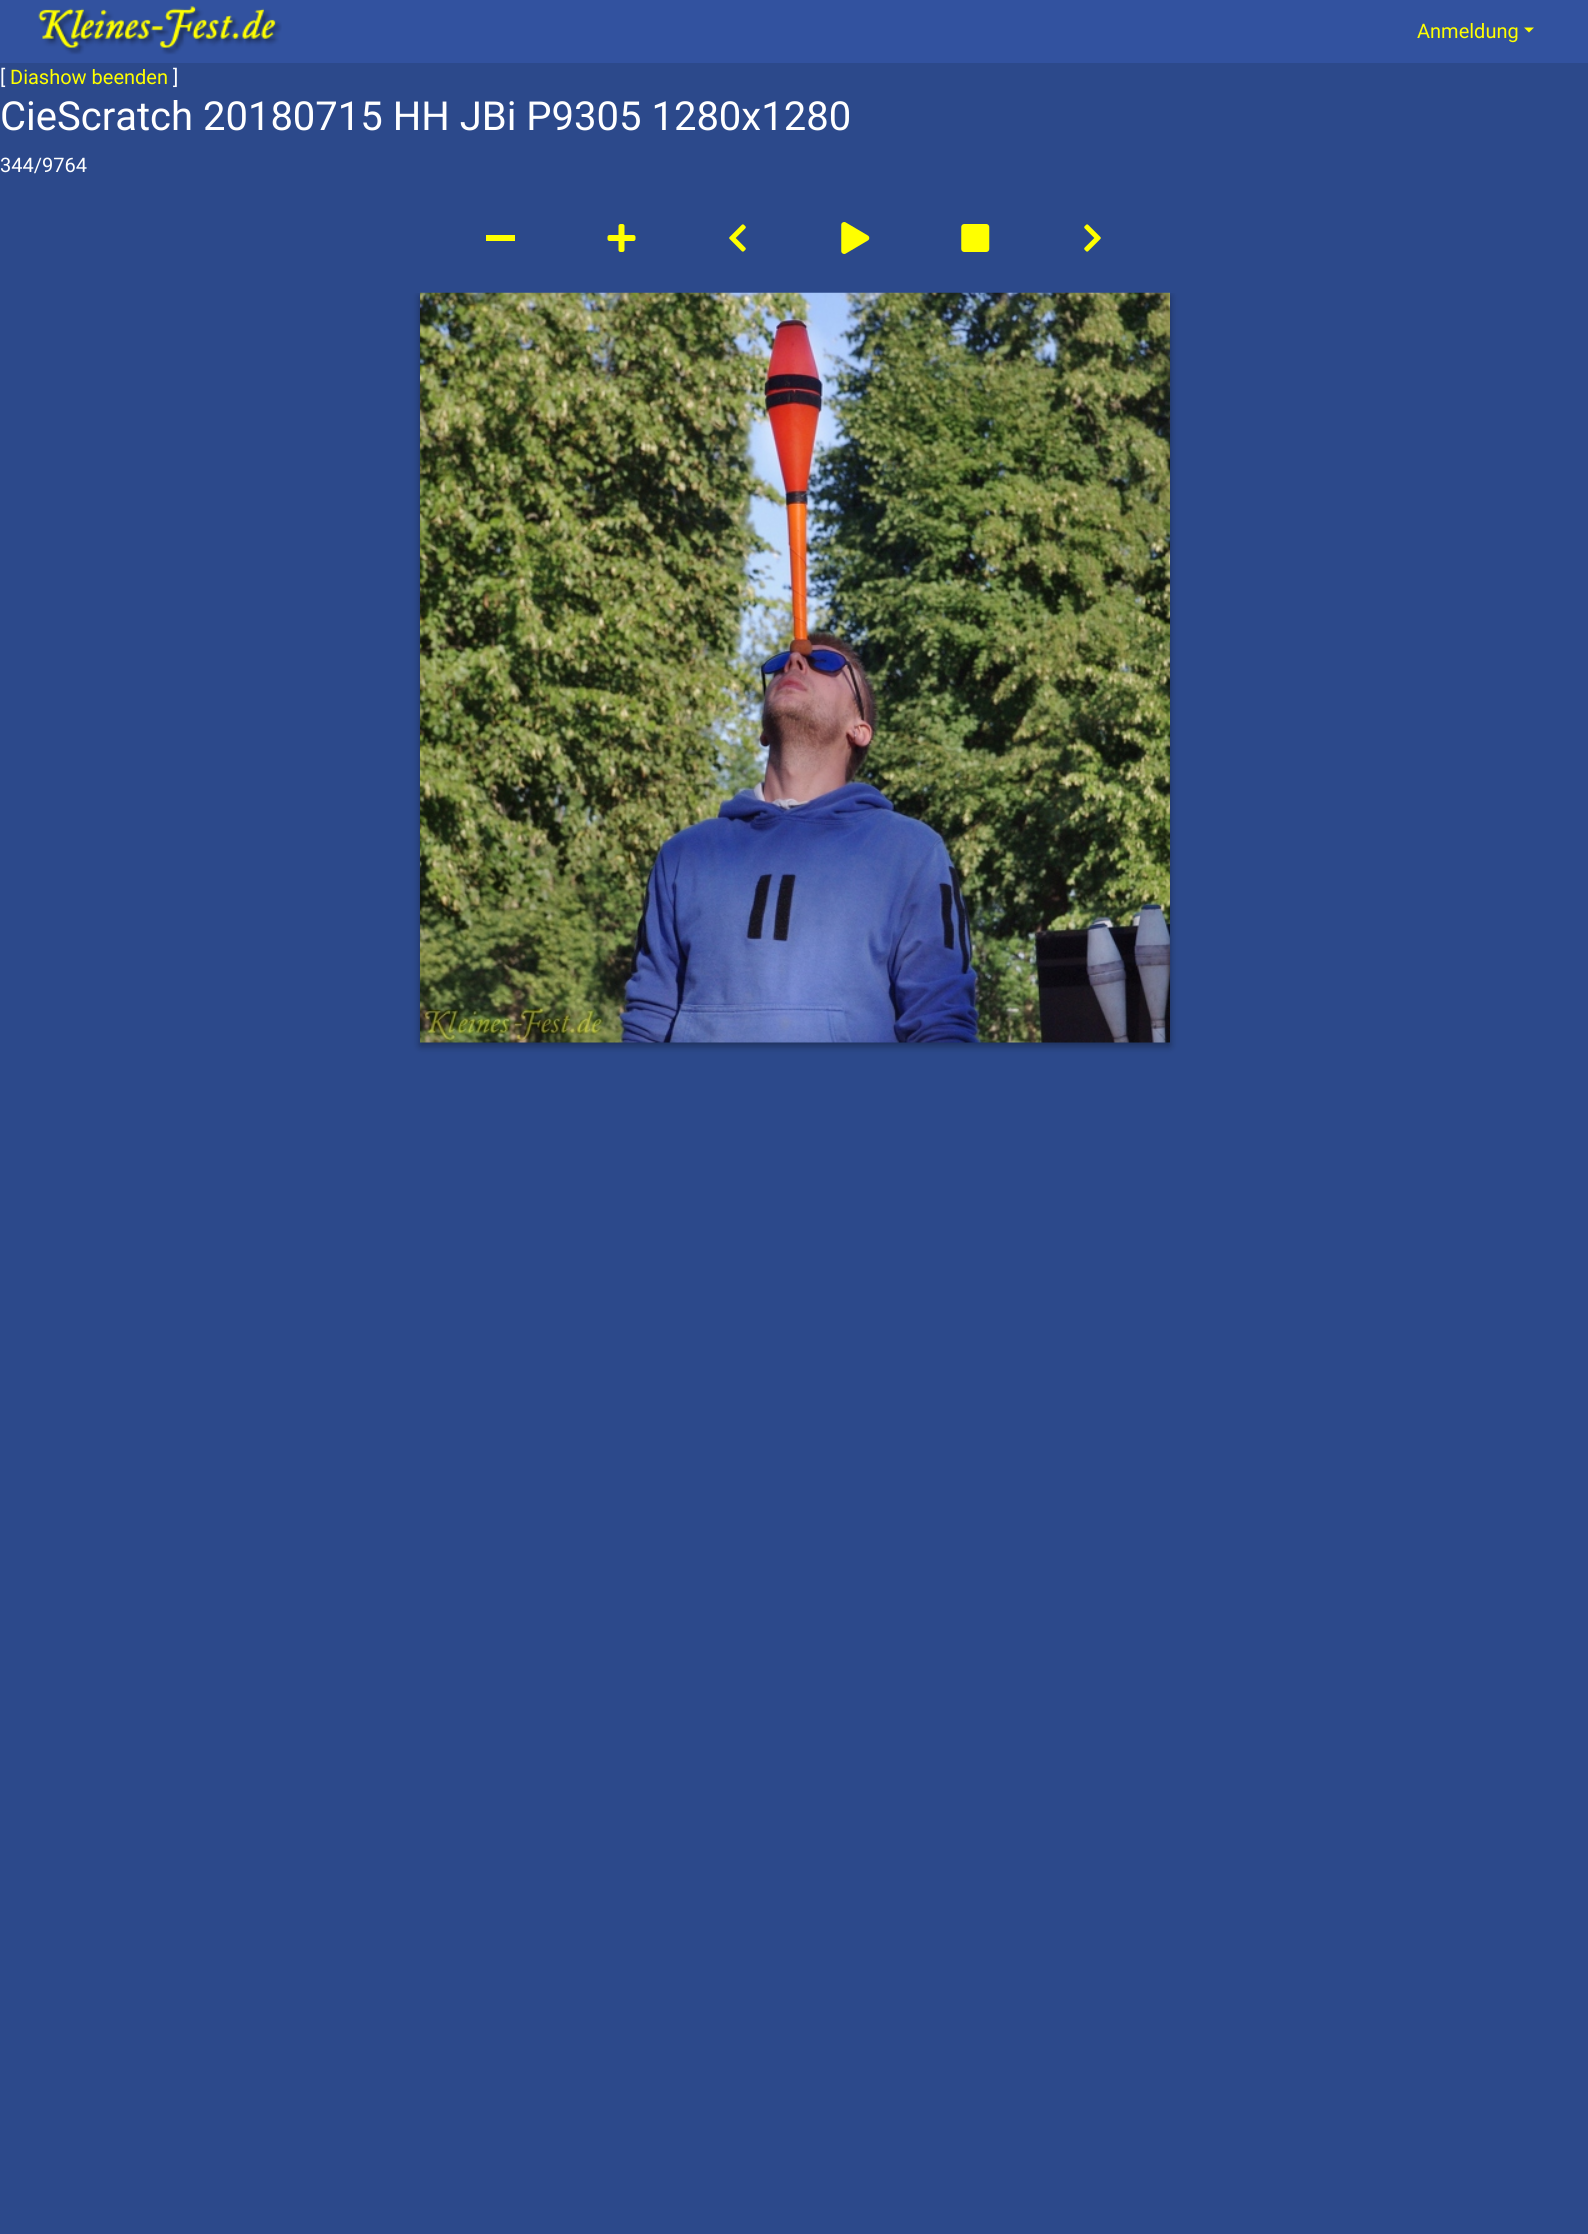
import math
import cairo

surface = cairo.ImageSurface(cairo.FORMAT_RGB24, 1588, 2234)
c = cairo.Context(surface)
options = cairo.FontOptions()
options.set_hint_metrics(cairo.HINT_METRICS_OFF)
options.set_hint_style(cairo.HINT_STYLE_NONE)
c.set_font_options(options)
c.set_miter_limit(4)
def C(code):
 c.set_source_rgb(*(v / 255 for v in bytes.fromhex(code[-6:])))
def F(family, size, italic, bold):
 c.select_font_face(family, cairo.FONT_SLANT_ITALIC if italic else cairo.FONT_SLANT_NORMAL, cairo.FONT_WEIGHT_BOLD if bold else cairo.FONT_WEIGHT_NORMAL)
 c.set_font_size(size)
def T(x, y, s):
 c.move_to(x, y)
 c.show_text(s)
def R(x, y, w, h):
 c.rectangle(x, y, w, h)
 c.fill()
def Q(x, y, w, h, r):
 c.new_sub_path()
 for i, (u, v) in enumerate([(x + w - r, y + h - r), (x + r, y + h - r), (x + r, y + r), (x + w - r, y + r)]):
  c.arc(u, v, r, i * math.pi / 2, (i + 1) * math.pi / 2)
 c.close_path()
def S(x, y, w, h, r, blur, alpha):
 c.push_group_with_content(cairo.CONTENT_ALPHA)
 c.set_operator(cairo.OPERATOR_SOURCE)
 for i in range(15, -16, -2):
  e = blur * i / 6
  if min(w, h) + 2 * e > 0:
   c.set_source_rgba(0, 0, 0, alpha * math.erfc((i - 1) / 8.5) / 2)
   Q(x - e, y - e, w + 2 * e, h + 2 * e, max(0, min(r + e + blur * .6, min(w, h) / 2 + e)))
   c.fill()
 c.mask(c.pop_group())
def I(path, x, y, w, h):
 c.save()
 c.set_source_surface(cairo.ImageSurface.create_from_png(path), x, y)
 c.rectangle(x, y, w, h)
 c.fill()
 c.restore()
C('2c498b')
c.paint()
C('32529f')
R(0,0,1588,63)
I('1.png',38,6,244,49)
F('Roboto',20,0,0)
C('ffff00')
T(1417,38,'Anmeldung')
c.new_path()
c.move_to(1524,27.5)
c.line_to(1534,27.5)
c.line_to(1529,32.5)
c.close_path()
c.fill()
C('ffffff')
T(0,84,'[')
C('ffff00')
T(10,84,'Diashow beenden')
C('ffffff')
T(173,84,']')
F('Roboto',40,0,0)
T(0,130,'CieScratch 20180715 HH JBi P9305 1280x1280')
F('Roboto',20,0,0)
T(0,172,'344/9764')
C('ffff00')
R(486,235,29,6)
I('2.png',607,224,29,28)
I('3.png',729,224,17,28)
I('4.png',841,222,29,32)
I('5.png',961,224,29,28)
I('6.png',1084,224,17,28)
c.save()
c.rectangle(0,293,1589,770)
c.clip()
C('000000')
S(420,296,750,750,0,4,.23)
S(420,296,750,750,0,4,.16)
c.restore()
I('7.png',420,292,750,751)
surface.write_to_png('o.png')
